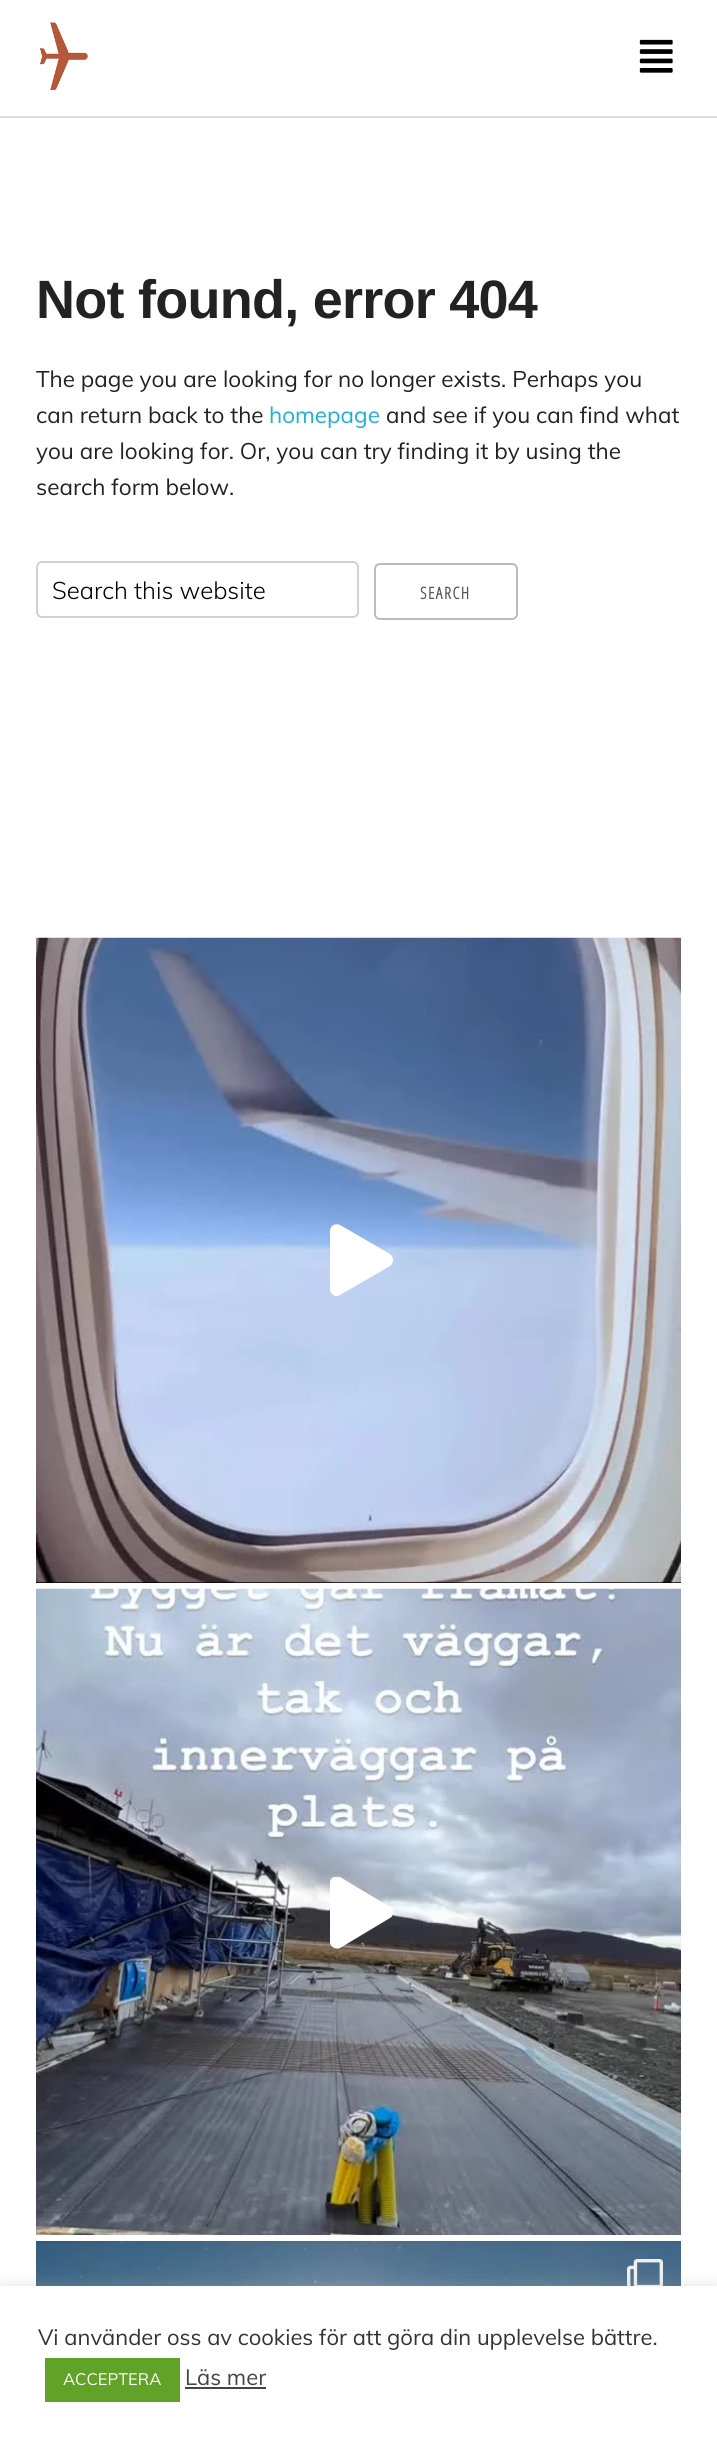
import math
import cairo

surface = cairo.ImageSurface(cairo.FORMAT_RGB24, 717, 2439)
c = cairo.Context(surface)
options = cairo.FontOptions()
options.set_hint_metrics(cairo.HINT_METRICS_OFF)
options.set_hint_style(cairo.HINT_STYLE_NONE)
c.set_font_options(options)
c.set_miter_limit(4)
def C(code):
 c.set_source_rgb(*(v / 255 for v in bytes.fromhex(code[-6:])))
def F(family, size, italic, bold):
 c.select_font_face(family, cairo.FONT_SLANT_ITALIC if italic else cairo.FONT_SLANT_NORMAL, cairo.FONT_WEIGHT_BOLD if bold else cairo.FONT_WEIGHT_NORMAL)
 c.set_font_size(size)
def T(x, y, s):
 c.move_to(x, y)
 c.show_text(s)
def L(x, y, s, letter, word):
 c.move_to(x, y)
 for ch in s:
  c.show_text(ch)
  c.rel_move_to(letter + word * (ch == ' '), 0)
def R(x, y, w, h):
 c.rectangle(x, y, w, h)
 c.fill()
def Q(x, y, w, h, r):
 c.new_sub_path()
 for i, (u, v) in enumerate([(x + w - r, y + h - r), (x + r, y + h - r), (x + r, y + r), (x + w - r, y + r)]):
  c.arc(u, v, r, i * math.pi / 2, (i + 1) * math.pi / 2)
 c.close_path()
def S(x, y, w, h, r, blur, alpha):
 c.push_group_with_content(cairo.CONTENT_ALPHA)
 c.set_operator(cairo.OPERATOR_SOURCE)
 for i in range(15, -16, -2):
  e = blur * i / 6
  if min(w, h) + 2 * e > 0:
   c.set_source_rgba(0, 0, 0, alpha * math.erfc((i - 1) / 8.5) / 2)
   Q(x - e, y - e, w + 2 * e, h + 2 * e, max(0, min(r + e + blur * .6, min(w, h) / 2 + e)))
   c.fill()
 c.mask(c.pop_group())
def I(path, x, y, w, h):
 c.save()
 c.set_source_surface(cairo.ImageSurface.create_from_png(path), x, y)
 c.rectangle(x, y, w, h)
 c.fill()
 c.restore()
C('ffffff')
c.paint()
C('dddddd')
R(0,116,717,2)
I('1.png',39,22,49,68)
I('2.png',639,39,34,34)
F('Liberation Sans',54,0,1)
C('222222')
L(36,318,'Not found, error 404',-.75,0)
F('Muli',22.5,0,0)
T(36,387,'The page you are looking for no longer exists. Perhaps you')
T(36,423,'can return back to the')
C('1eaedb')
T(269,423,'homepage')
C('222222')
T(386,423,'and see if you can find what')
T(36,459,'you are looking for. Or, you can try finding it by using the')
T(36,495,'search form below.')
Q(37,562,321,55,5)
C('d1d1d1')
c.stroke()
F('Muli Light',24,0,0)
C('000000')
T(52,599,'Search this website')
Q(375,564,142,55,5)
C('bbbbbb')
c.stroke()
F('Open Sans Condensed',16.5,0,1)
C('555555')
L(420,599,'SEARCH',1.5,0)
C('000000')
R(36,1582,645,1)
I('3.png',36,937,645,646)
C('ffffff')
c.new_path()
c.move_to(390,1254)
c.line_to(340,1225)
c.curve_to(336,1223,330,1225,330,1231)
c.line_to(330,1289)
c.curve_to(330,1295,336,1298,340,1295)
c.line_to(390,1266)
c.curve_to(394,1263,394,1257,390,1254)
c.close_path()
c.fill()
I('4.png',36,1588,645,647)
c.save()
c.rectangle(330,1877,63,72)
c.clip()
c.new_path()
c.move_to(390,1907)
c.line_to(340,1877)
c.curve_to(336,1875,330,1877,330,1883)
c.line_to(330,1942)
c.curve_to(330,1947,336,1950,340,1948)
c.line_to(390,1918)
c.curve_to(394,1916,394,1909,390,1907)
c.close_path()
c.fill()
c.restore()
I('5.png',36,2241,645,45)
I('6.png',627,2259,36,27)
C('acabab')
S(0,2285,717,153,0,7.5,.3)
C('ffffff')
R(0,2286,717,153)
F('Muli',22,0,0)
C('333333')
T(38,2345,'Vi använder oss av cookies för att göra din upplevelse bättre.')
C('61a229')
R(45,2358,135,44)
F('Muli',16.5,0,0)
C('ffffff')
T(63,2385,'ACCEPTERA')
F('Muli',22,0,0)
C('444444')
T(185,2385,'Läs mer')
R(185,2387,81,2)
surface.write_to_png('o.png')
